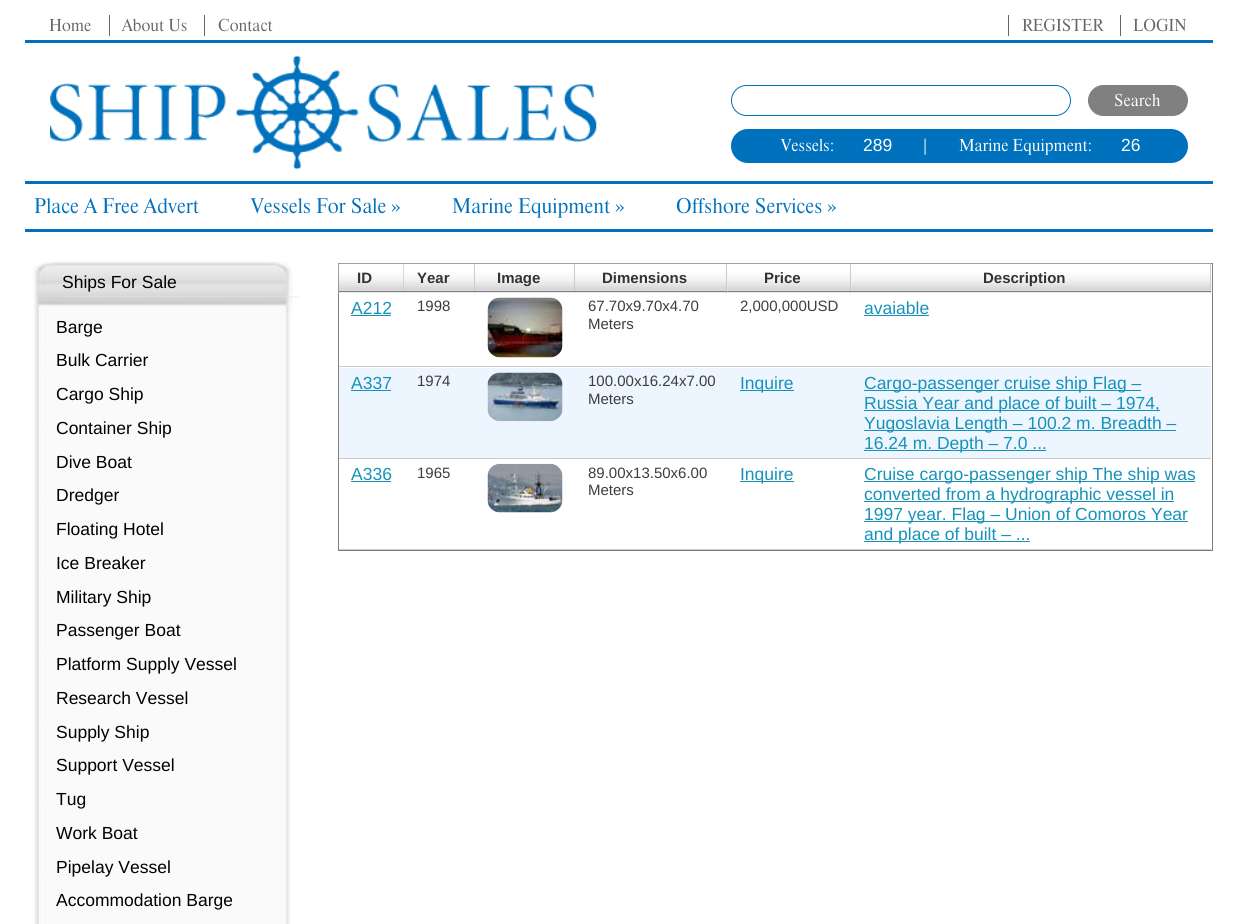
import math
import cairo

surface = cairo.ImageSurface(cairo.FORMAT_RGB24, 1236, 924)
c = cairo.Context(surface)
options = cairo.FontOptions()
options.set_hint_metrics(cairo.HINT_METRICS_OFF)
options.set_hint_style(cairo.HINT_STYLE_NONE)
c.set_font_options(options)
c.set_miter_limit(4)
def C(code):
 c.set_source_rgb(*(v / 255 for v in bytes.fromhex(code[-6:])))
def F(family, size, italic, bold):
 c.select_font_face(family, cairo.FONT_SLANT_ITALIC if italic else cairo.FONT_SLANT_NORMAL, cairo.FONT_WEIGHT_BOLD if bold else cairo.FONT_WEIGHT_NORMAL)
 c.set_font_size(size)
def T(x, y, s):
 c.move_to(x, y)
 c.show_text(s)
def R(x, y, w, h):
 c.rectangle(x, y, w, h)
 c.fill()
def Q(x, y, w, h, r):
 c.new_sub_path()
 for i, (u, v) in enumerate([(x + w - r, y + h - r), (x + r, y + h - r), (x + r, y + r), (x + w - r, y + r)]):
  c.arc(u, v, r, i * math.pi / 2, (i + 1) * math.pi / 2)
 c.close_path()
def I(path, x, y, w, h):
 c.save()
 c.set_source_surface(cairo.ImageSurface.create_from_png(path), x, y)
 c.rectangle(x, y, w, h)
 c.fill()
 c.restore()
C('ffffff')
c.paint()
C('0071bc')
R(25,40,1188,3)
F('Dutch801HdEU',16.25,0,0)
C('666666')
T(49,31,'Home')
T(122,31,'About Us')
R(109,15,1,21)
T(218,31,'Contact')
R(204,15,1,21)
T(1022,31,'REGISTER')
R(1008,15,1,21)
T(1133,31,'LOGIN')
R(1120,15,1,21)
I('1.png',50,56,547,113)
Q(731.5,85.5,339,30,15)
C('0071bc')
c.set_line_width(1)
c.stroke()
C('808080')
Q(1088.5,85.5,99,30,15)
c.fill_preserve()
c.stroke()
C('ffffff')
T(1114,106,'Search')
C('0071bc')
Q(731,129,457,34,17)
c.fill()
C('ffffff')
T(781,151,'Vessels:')
F('Liberation Sans',17.5,0,0)
T(863,151,'289')
F('Dutch801HdEU',16.25,0,0)
T(921,151,'|')
T(959,151,'Marine Equipment:')
F('Liberation Sans',17.5,0,0)
T(1121,151,'26')
C('0071bc')
R(25,181,1188,3)
R(25,229,1188,3)
F('Dutch801HdEU',20,0,0)
T(34,213,'Place A Free Advert')
T(251,213,'Vessels For Sale »')
T(452,213,'Marine Equipment »')
T(676,213,'Offshore Services »')
I('2.png',33,261,260,53)
I('3.png',63,296,236,2)
F('Liberation Sans',17.5,0,0)
C('000000')
T(62,288,'Ships For Sale')
I('4.png',34,313,257,611)
T(56,333,'Barge')
T(56,366,'Bulk Carrier')
T(56,400,'Cargo Ship')
T(56,434,'Container Ship')
T(56,468,'Dive Boat')
T(56,501,'Dredger')
T(56,535,'Floating Hotel')
T(56,569,'Ice Breaker')
T(56,603,'Military Ship')
T(56,636,'Passenger Boat')
T(56,670,'Platform Supply Vessel')
T(56,704,'Research Vessel')
T(56,738,'Supply Ship')
T(56,771,'Support Vessel')
T(56,805,'Tug')
T(56,839,'Work Boat')
T(56,873,'Pipelay Vessel')
T(56,906,'Accommodation Barge')
c.rectangle(338.5,263.5,874,287)
C('7f7f7f')
c.stroke()
I('5.png',338,263,66,30)
C('cbcbcb')
R(403,264,1,29)
C('7f7f7f')
R(339,291,65,1)
F('Liberation Sans',15,0,1)
C('333333')
T(357,283,'ID')
I('6.png',403,263,72,30)
C('cbcbcb')
R(474,264,1,29)
C('7f7f7f')
R(404,291,71,1)
C('333333')
T(417,283,'Year')
I('7.png',475,263,100,30)
C('cbcbcb')
R(574,264,1,29)
C('7f7f7f')
R(475,291,100,1)
C('333333')
T(497,283,'Image')
I('8.png',575,263,153,30)
C('cbcbcb')
R(726,264,1,29)
C('7f7f7f')
R(575,291,153,1)
C('333333')
T(602,283,'Dimensions')
I('9.png',727,263,125,30)
C('cbcbcb')
R(850,264,1,29)
C('7f7f7f')
R(728,291,123,1)
C('333333')
T(764,283,'Price')
I('10.png',851,263,361,30)
C('cbcbcb')
R(1210,264,1,29)
C('7f7f7f')
R(851,291,360,1)
C('333333')
T(983,283,'Description')
C('cbcbcb')
R(339,366,872,1)
F('Liberation Sans',17.5,0,0)
C('1692b8')
T(351,314,'A212')
R(351,315,40,1)
F('Liberation Sans',15,0,0)
C('3d3d3d')
T(417,311,'1998')
I('11.png',487,297,76,61)
T(588,311,'67.70x9.70x4.70')
T(588,329,'Meters')
T(740,311,'2,000,000USD')
F('Liberation Sans',17.5,0,0)
C('1692b8')
T(864,314,'avaiable')
R(864,315,65,1)
C('edf5ff')
R(339,368,872,90)
C('cbcbcb')
R(339,458,872,1)
C('1692b8')
T(351,389,'A337')
R(351,390,40,1)
F('Liberation Sans',15,0,0)
C('3d3d3d')
T(417,386,'1974')
I('12.png',487,372,76,50)
T(588,386,'100.00x16.24x7.00')
T(588,404,'Meters')
C('1692b8')
R(740,390,54,1)
F('Liberation Sans',17.5,0,0)
T(740,389,'Inquire')
R(864,390,277,1)
T(864,389,'Cargo-passenger cruise ship Flag –')
R(864,410,296,1)
T(864,409,'Russia Year and place of built – 1974,')
R(864,430,312,1)
T(864,429,'Yugoslavia Length – 100.2 m. Breadth –')
R(864,450,182,1)
T(864,449,'16.24 m. Depth – 7.0 ...')
C('cbcbcb')
R(339,549,872,1)
C('1692b8')
T(351,480,'A336')
R(351,481,40,1)
F('Liberation Sans',15,0,0)
C('3d3d3d')
T(417,478,'1965')
I('13.png',487,463,76,50)
T(588,478,'89.00x13.50x6.00')
T(588,495,'Meters')
C('1692b8')
R(740,481,54,1)
F('Liberation Sans',17.5,0,0)
T(740,480,'Inquire')
R(864,481,331,1)
T(864,480,'Cruise cargo-passenger ship The ship was')
R(864,501,310,1)
T(864,500,'converted from a hydrographic vessel in')
R(864,521,324,1)
T(864,520,'1997 year. Flag – Union of Comoros Year')
R(864,541,166,1)
T(864,540,'and place of built – ...')
surface.write_to_png('o.png')
